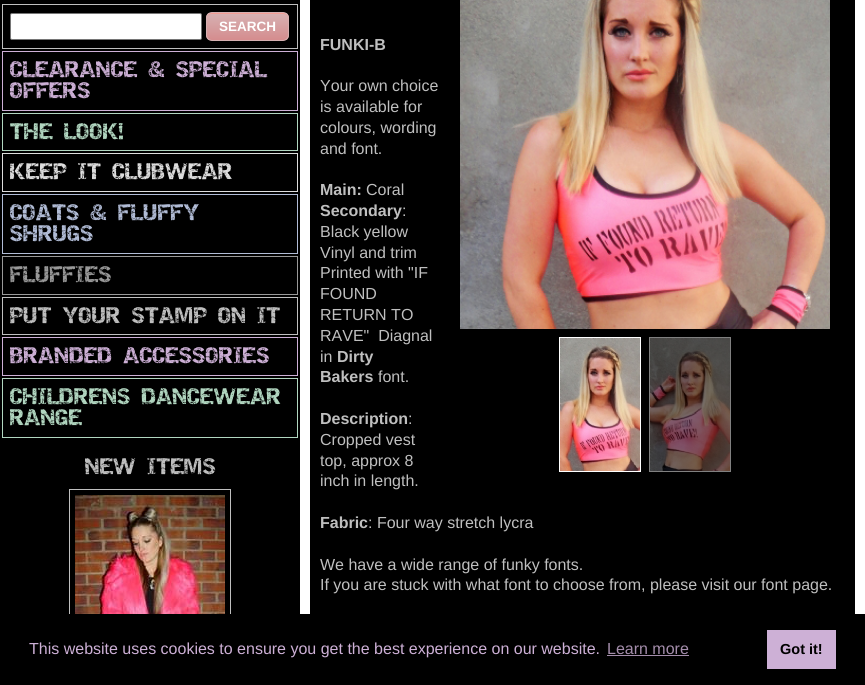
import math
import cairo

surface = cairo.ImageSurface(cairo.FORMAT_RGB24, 865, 685)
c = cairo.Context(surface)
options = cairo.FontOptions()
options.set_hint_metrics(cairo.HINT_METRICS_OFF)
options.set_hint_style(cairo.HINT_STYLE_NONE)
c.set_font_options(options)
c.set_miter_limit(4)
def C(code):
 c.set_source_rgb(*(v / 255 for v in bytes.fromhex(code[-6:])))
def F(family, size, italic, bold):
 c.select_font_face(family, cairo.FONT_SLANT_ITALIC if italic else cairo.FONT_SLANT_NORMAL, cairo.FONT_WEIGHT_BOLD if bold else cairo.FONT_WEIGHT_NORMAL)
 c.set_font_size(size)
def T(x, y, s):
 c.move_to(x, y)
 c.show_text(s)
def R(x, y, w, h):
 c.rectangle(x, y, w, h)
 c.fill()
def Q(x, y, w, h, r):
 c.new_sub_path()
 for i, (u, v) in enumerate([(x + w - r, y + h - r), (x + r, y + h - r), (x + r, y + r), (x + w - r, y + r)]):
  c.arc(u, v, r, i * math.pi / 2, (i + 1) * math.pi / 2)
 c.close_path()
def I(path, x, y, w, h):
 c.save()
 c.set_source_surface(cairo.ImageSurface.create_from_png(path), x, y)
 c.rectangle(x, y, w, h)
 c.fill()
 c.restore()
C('ffffff')
c.paint()
C('000000')
R(0,0,300,614)
c.rectangle(2.5,4.5,295,44)
C('bfbfbf')
c.set_line_width(1)
c.stroke()
C('ffffff')
Q(10.5,13.5,191,26,1.5)
c.fill_preserve()
C('767676')
c.stroke()
c.save()
Q(206,12,83,29,6)
c.clip()
gradient = cairo.LinearGradient(207,13,207,40)
gradient.add_color_stop_rgba(.05,0.839,0.69,0.694,1)
gradient.add_color_stop_rgba(1,0.835,0.549,0.557,1)
c.set_source(gradient)
R(206,13,83,27)
c.restore()
C('f29c93')
c.new_path()
c.move_to(212,14)
c.line_to(283,14)
c.curve_to(286,14,288,16,288,19)
c.curve_to(288,10,277,13,271,13)
c.line_to(224,13)
c.curve_to(218,13,207,10,207,19)
c.curve_to(207,16,209,14,212,14)
c.close_path()
c.fill()
Q(206.5,12.5,82,28,5.5)
C('d6b0b1')
c.stroke()
F('Liberation Sans',13.5,0,1)
C('ffffff')
T(219,31,'SEARCH')
c.rectangle(2.5,51.5,295,59)
C('cdb0d6')
c.stroke()
F('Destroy',16,0,0)
T(10,74,'CLEARANCE & SPECIAL')
T(10,95,'OFFERS')
c.rectangle(2.5,113.5,295,37)
C('b1d6c0')
c.stroke()
T(10,136,'THE LOOK!')
c.rectangle(2.5,153.5,295,38)
C('dddddd')
c.stroke()
T(10,176,'KEEP IT CLUBWEAR')
c.rectangle(2.5,194.5,295,59)
C('b1bcd6')
c.stroke()
T(10,217,'COATS & FLUFFY')
T(10,238,'SHRUGS')
c.rectangle(2.5,256.5,295,38)
C('999999')
c.stroke()
T(10,279,'FLUFFIES')
c.rectangle(2.5,297.5,295,37)
C('bfbfbf')
c.stroke()
T(10,320,'PUT YOUR STAMP ON IT')
c.rectangle(2.5,337.5,295,38)
C('cdb0d6')
c.stroke()
T(10,360,'BRANDED ACCESSORIES')
c.rectangle(2.5,378.5,295,59)
C('b1d6c0')
c.stroke()
T(10,401,'CHILDRENS DANCEWEAR')
T(10,422,'RANGE')
C('bfbfbf')
T(85,471,'NEW ITEMS')
c.rectangle(69.5,489.5,161,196)
c.stroke()
I('1.png',75,495,150,119)
C('000000')
R(310,0,545,614)
I('2.png',460,0,370,329)
c.rectangle(559.5,337.5,81,134)
C('ffffff')
c.stroke()
c.rectangle(649.5,337.5,81,134)
C('808080')
c.stroke()
I('3.png',560,338,80,133)
I('4.png',650,338,80,133)
F('Liberation Sans',16,0,1)
C('bfbfbf')
T(320,50,'FUNKI-B')
F('Liberation Sans',16,0,0)
T(320,91,'Your own choice')
T(320,112,'is available for')
T(320,133,'colours, wording')
T(320,154,'and font.')
F('Liberation Sans',16,0,1)
T(320,195,'Main:')
F('Liberation Sans',16,0,0)
T(366,195,'Coral')
F('Liberation Sans',16,0,1)
T(320,216,'Secondary')
F('Liberation Sans',16,0,0)
T(402,216,':')
T(320,237,'Black yellow')
T(320,258,'Vinyl and trim')
T(320,278,'Printed with "IF')
T(320,299,'FOUND')
T(320,320,'RETURN TO')
T(320,341,'RAVE"  Diagnal')
T(320,362,'in')
F('Liberation Sans',16,0,1)
T(337,362,'Dirty')
T(320,382,'Bakers')
F('Liberation Sans',16,0,0)
T(378,382,'font.')
F('Liberation Sans',16,0,1)
T(320,424,'Description')
F('Liberation Sans',16,0,0)
T(408,424,':')
T(320,445,'Cropped vest')
T(320,466,'top, approx 8')
T(320,486,'inch in length.')
F('Liberation Sans',16,0,1)
T(320,528,'Fabric')
F('Liberation Sans',16,0,0)
T(368,528,': Four way stretch lycra')
T(320,570,'We have a wide range of funky fonts.')
T(320,590,'If you are stuck with what font to choose from, please visit our font page.')
C('000000')
R(0,614,865,71)
C('cdb0d6')
T(29,654,'This website uses cookies to ensure you get the best experience on our website.')
C('a48dab')
T(607,654,'Learn more')
R(607,655,82,1)
C('cdb0d6')
R(767,630,69,39)
F('Liberation Sans',14.5,0,1)
C('000000')
T(780,654,'Got it!')
surface.write_to_png('o.png')
